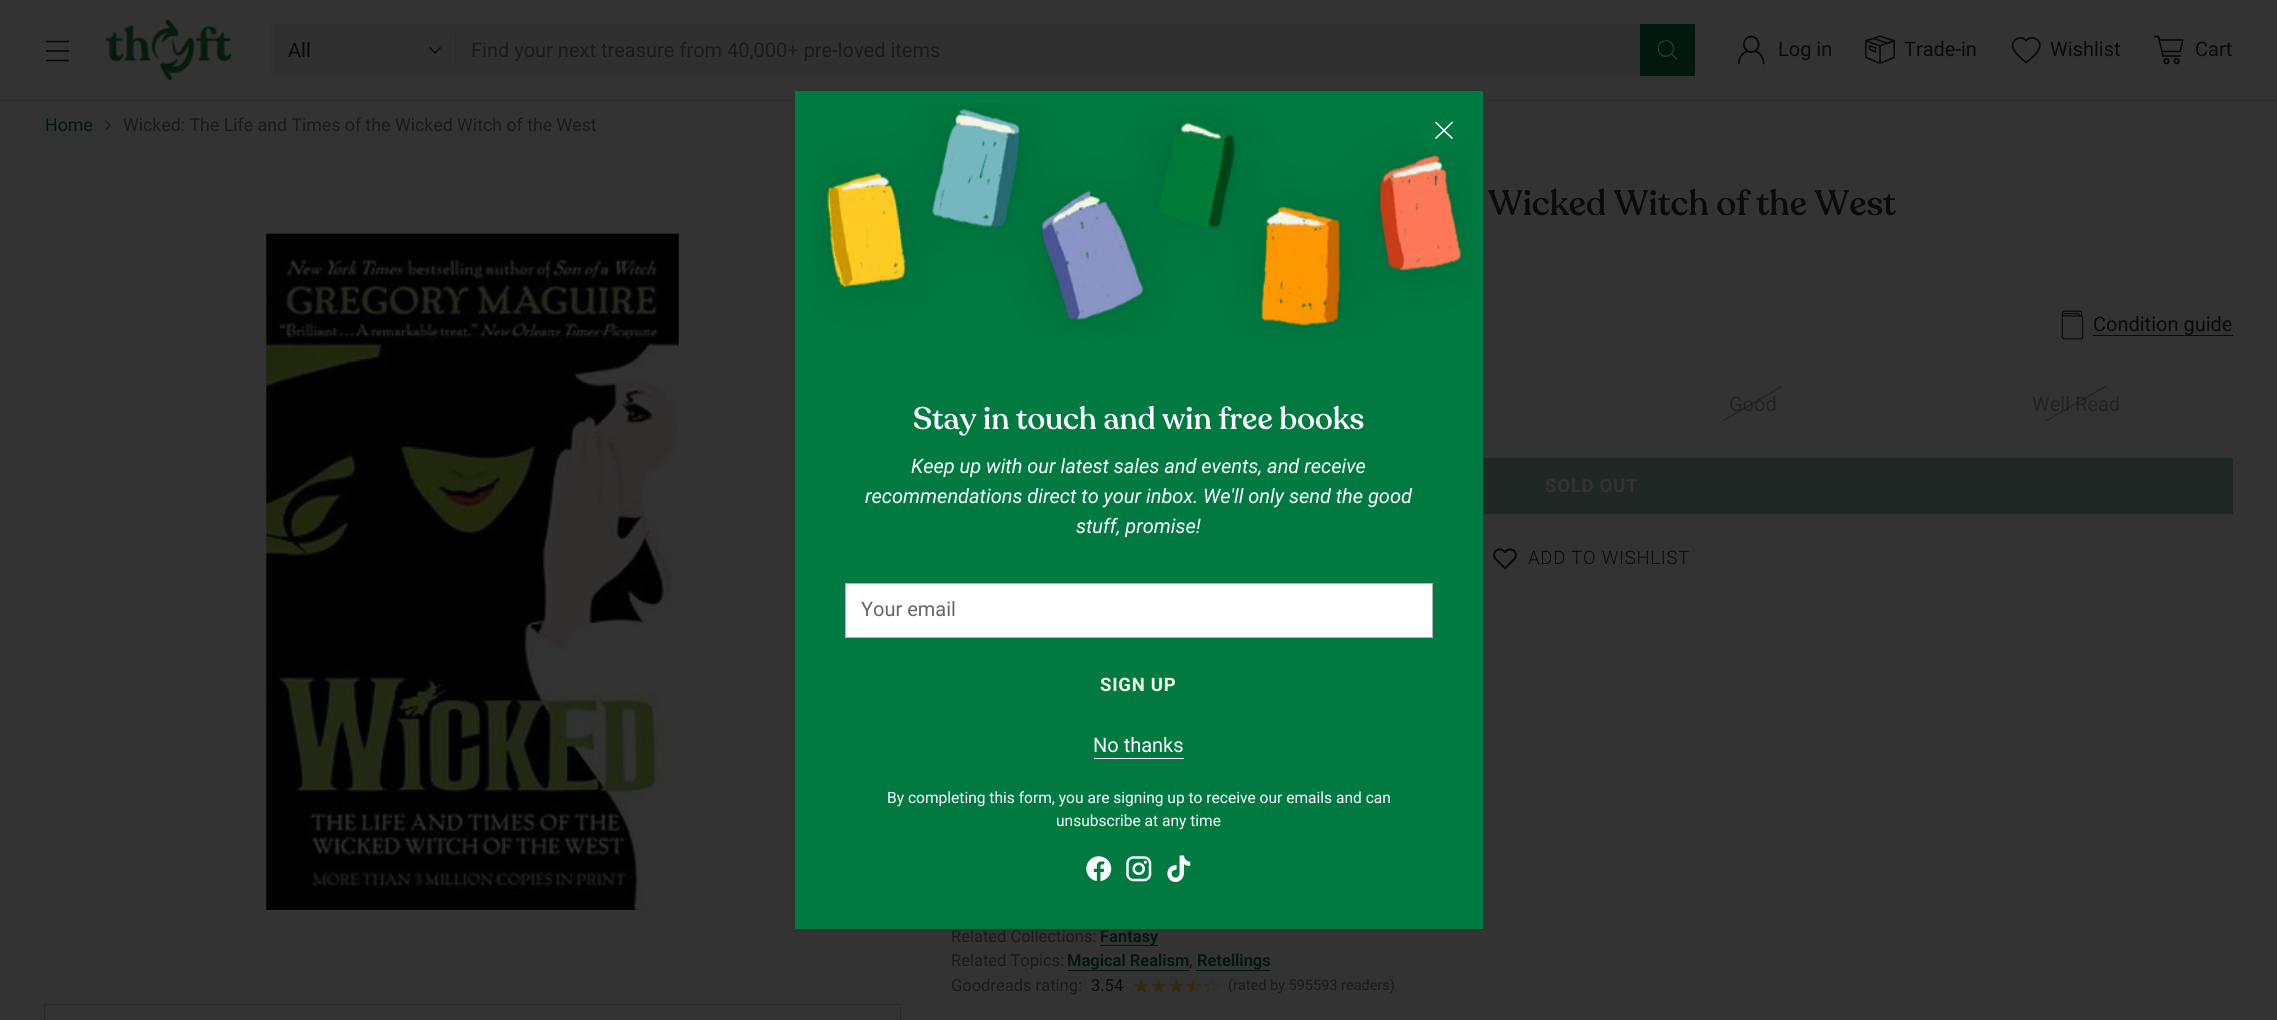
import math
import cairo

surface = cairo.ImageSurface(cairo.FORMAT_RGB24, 2277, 1020)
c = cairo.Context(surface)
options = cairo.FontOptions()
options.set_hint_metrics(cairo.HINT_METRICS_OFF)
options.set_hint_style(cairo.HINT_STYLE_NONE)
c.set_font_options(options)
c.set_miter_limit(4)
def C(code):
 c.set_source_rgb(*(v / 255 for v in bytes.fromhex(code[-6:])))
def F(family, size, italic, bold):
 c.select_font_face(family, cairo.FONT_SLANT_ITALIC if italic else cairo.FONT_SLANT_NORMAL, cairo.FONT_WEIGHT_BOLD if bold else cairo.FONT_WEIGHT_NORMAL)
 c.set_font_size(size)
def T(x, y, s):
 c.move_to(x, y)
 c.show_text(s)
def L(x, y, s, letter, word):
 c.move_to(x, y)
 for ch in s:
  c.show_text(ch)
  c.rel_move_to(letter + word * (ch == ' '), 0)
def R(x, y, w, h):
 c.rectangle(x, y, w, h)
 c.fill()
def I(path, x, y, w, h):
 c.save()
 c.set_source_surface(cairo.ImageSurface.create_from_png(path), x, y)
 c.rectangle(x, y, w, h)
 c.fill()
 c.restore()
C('333333')
c.paint()
c.rectangle(-.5,-.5,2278,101)
C('2e2e2e')
c.set_line_width(1)
c.stroke()
c.new_path()
c.move_to(46,51)
c.line_to(69,51)
c.move_to(46,41.5)
c.line_to(69,41.5)
c.move_to(46,60.5)
c.line_to(69,60.5)
C('0a0a0a')
c.set_line_width(1.6)
c.stroke()
I('1.png',106,20,126,60)
c.rectangle(271.5,24.5,1423,51)
C('303030')
c.set_line_width(1)
c.stroke()
R(273,25,1367,50)
F('Roboto',20,0,0)
C('0a0a0a')
T(288,57,'All')
c.new_path()
c.move_to(429.5,47.5)
c.line_to(435,53)
c.line_to(440.5,47.5)
c.set_line_width(1.4)
c.stroke()
C('2a2a2a')
R(455,35,1,30)
C('1a1a1a')
T(471,57,'Find your next treasure from 40,000+ pre-loved items')
C('00180d')
R(1640,24,55,52)
I('2.png',1658,40,20,20)
I('3.png',1738,35,27,30)
C('0a0a0a')
T(1778,56,'Log in')
I('4.png',1865,35,30,30)
T(1904,56,'Trade-in')
c.new_path()
c.move_to(2026,62.5)
c.curve_to(2022,59,2016,54.5,2013.5,49)
c.curve_to(2009.5,40.5,2020.5,34,2026,40.5)
c.curve_to(2032,34,2043,40.5,2039,49)
c.curve_to(2036.5,54.5,2030.5,59,2026,62.5)
c.close_path()
c.set_line_width(1.7)
c.stroke()
T(2050,56,'Wishlist')
I('5.png',2153,35,31,30)
T(2195,56,'Cart')
F('Roboto',17.75,0,0)
C('00180d')
T(45,131,'Home')
c.new_path()
c.move_to(105.5,130)
c.line_to(110,125.5)
c.line_to(105.5,120.5)
C('1a1a1a')
c.set_line_width(1.3)
c.stroke()
T(123,131,'Wicked: The Life and Times of the Wicked Witch of the West')
I('6.png',266,233,413,677)
c.rectangle(44.5,1004.5,856,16)
C('2a2a2a')
c.set_line_width(1)
c.stroke()
F('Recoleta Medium',35,0,0)
C('0a0a0a')
T(1488,215,'Wicked Witch of the West')
I('7.png',2061,310,23,30)
R(2093,335,140,1)
F('Roboto',20,0,0)
T(2093,331,'Condition guide')
C('222222')
T(1729,411,'Good')
c.save()
c.rectangle(1723,386,60,35)
c.clip()
c.new_path()
c.move_to(1722.5,421)
c.line_to(1782.5,386)
c.set_source_rgba(0.039,0.039,0.039,0.4)
c.set_line_width(1.2)
c.stroke()
c.restore()
T(2032,411,'Well Read')
c.new_path()
c.move_to(2046,421)
c.line_to(2106,386)
c.set_source_rgba(0.039,0.039,0.039,0.4)
c.set_line_width(1.2)
c.stroke()
C('1f2824')
R(1483,458,750,56)
F('Roboto',18.5,0,1)
C('323331')
L(1545,492,'SOLD OUT',.75,0)
I('8.png',1493,548,24,22)
F('Roboto Light',18.5,0,0)
C('0a0a0a')
L(1528,564,'ADD TO WISHLIST',.75,0)
F('Roboto',16.5,0,0)
C('1a1a1a')
T(951,942,'Related Collections:')
C('00180d')
R(1100,945,58,1)
F('Roboto SemiBold',16.5,0,0)
T(1100,942,'Fantasy')
F('Roboto',16.5,0,0)
C('1a1a1a')
T(951,966,'Related Topics:')
F('Roboto SemiBold',16.5,0,0)
C('00180d')
T(1067,966,'Magical Realism')
R(1068,970,121,1)
F('Roboto',16.5,0,0)
C('0a0a0a')
T(1189,966,',')
F('Roboto SemiBold',16.5,0,0)
C('00180d')
T(1197,966,'Retellings')
R(1196,970,74,1)
F('Roboto',16.5,0,0)
C('1a1a1a')
T(951,991,'Goodreads rating:')
C('0a0a0a')
T(1091,991,'3.54')
I('9.png',1134,979,15,14)
I('10.png',1151,979,15,14)
I('9.png',1169,979,15,14)
I('11.png',1186,979,15,14)
I('12.png',1204,979,15,14)
F('Roboto',14.5,0,0)
C('1a1a1a')
T(1228,990,'(rated by 595593 readers)')
C('007a41')
R(795,91,688,838)
I('13.png',812,103,660,235)
c.arc(1444,130,24,0,2 * math.pi)
c.fill()
c.new_path()
c.move_to(1436,122.5)
c.line_to(1444,130.5)
c.move_to(1452,138)
c.line_to(1444,130.5)
c.move_to(1444,130.5)
c.line_to(1452,122.5)
c.move_to(1444,130.5)
c.line_to(1436,138)
C('ffffff')
c.set_line_width(1.5)
c.set_line_cap(cairo.LINE_CAP_SQUARE)
c.stroke()
F('Recoleta Medium',31,0,0)
T(913,429,'Stay in touch and win free books')
F('Roboto',20,1,0)
T(911,473,'Keep up with our latest sales and events, and receive')
T(865,503,'recommendations direct to your inbox. We\'ll only send the good')
T(1076,533,'stuff, promise!')
c.rectangle(845.5,583.5,587,54)
c.fill_preserve()
C('b4b4b4')
c.set_line_width(1)
c.set_line_cap(cairo.LINE_CAP_BUTT)
c.stroke()
F('Roboto',20,0,0)
C('666666')
T(861,616,'Your email')
F('Roboto',18.5,0,1)
C('f8fde4')
L(1100,691,'SIGN UP',.75,0)
F('Roboto',20,0,0)
C('ffffff')
T(1093,752,'No thanks')
R(1094,758,90,1)
F('Roboto',15.55,0,0)
T(887,803,'By completing this form, you are signing up to receive our emails and can')
T(1056,826,'unsubscribe at any time')
I('14.png',1086,856,26,26)
I('15.png',1126,856,26,26)
I('16.png',1167,855,24,27)
surface.write_to_png('o.png')
